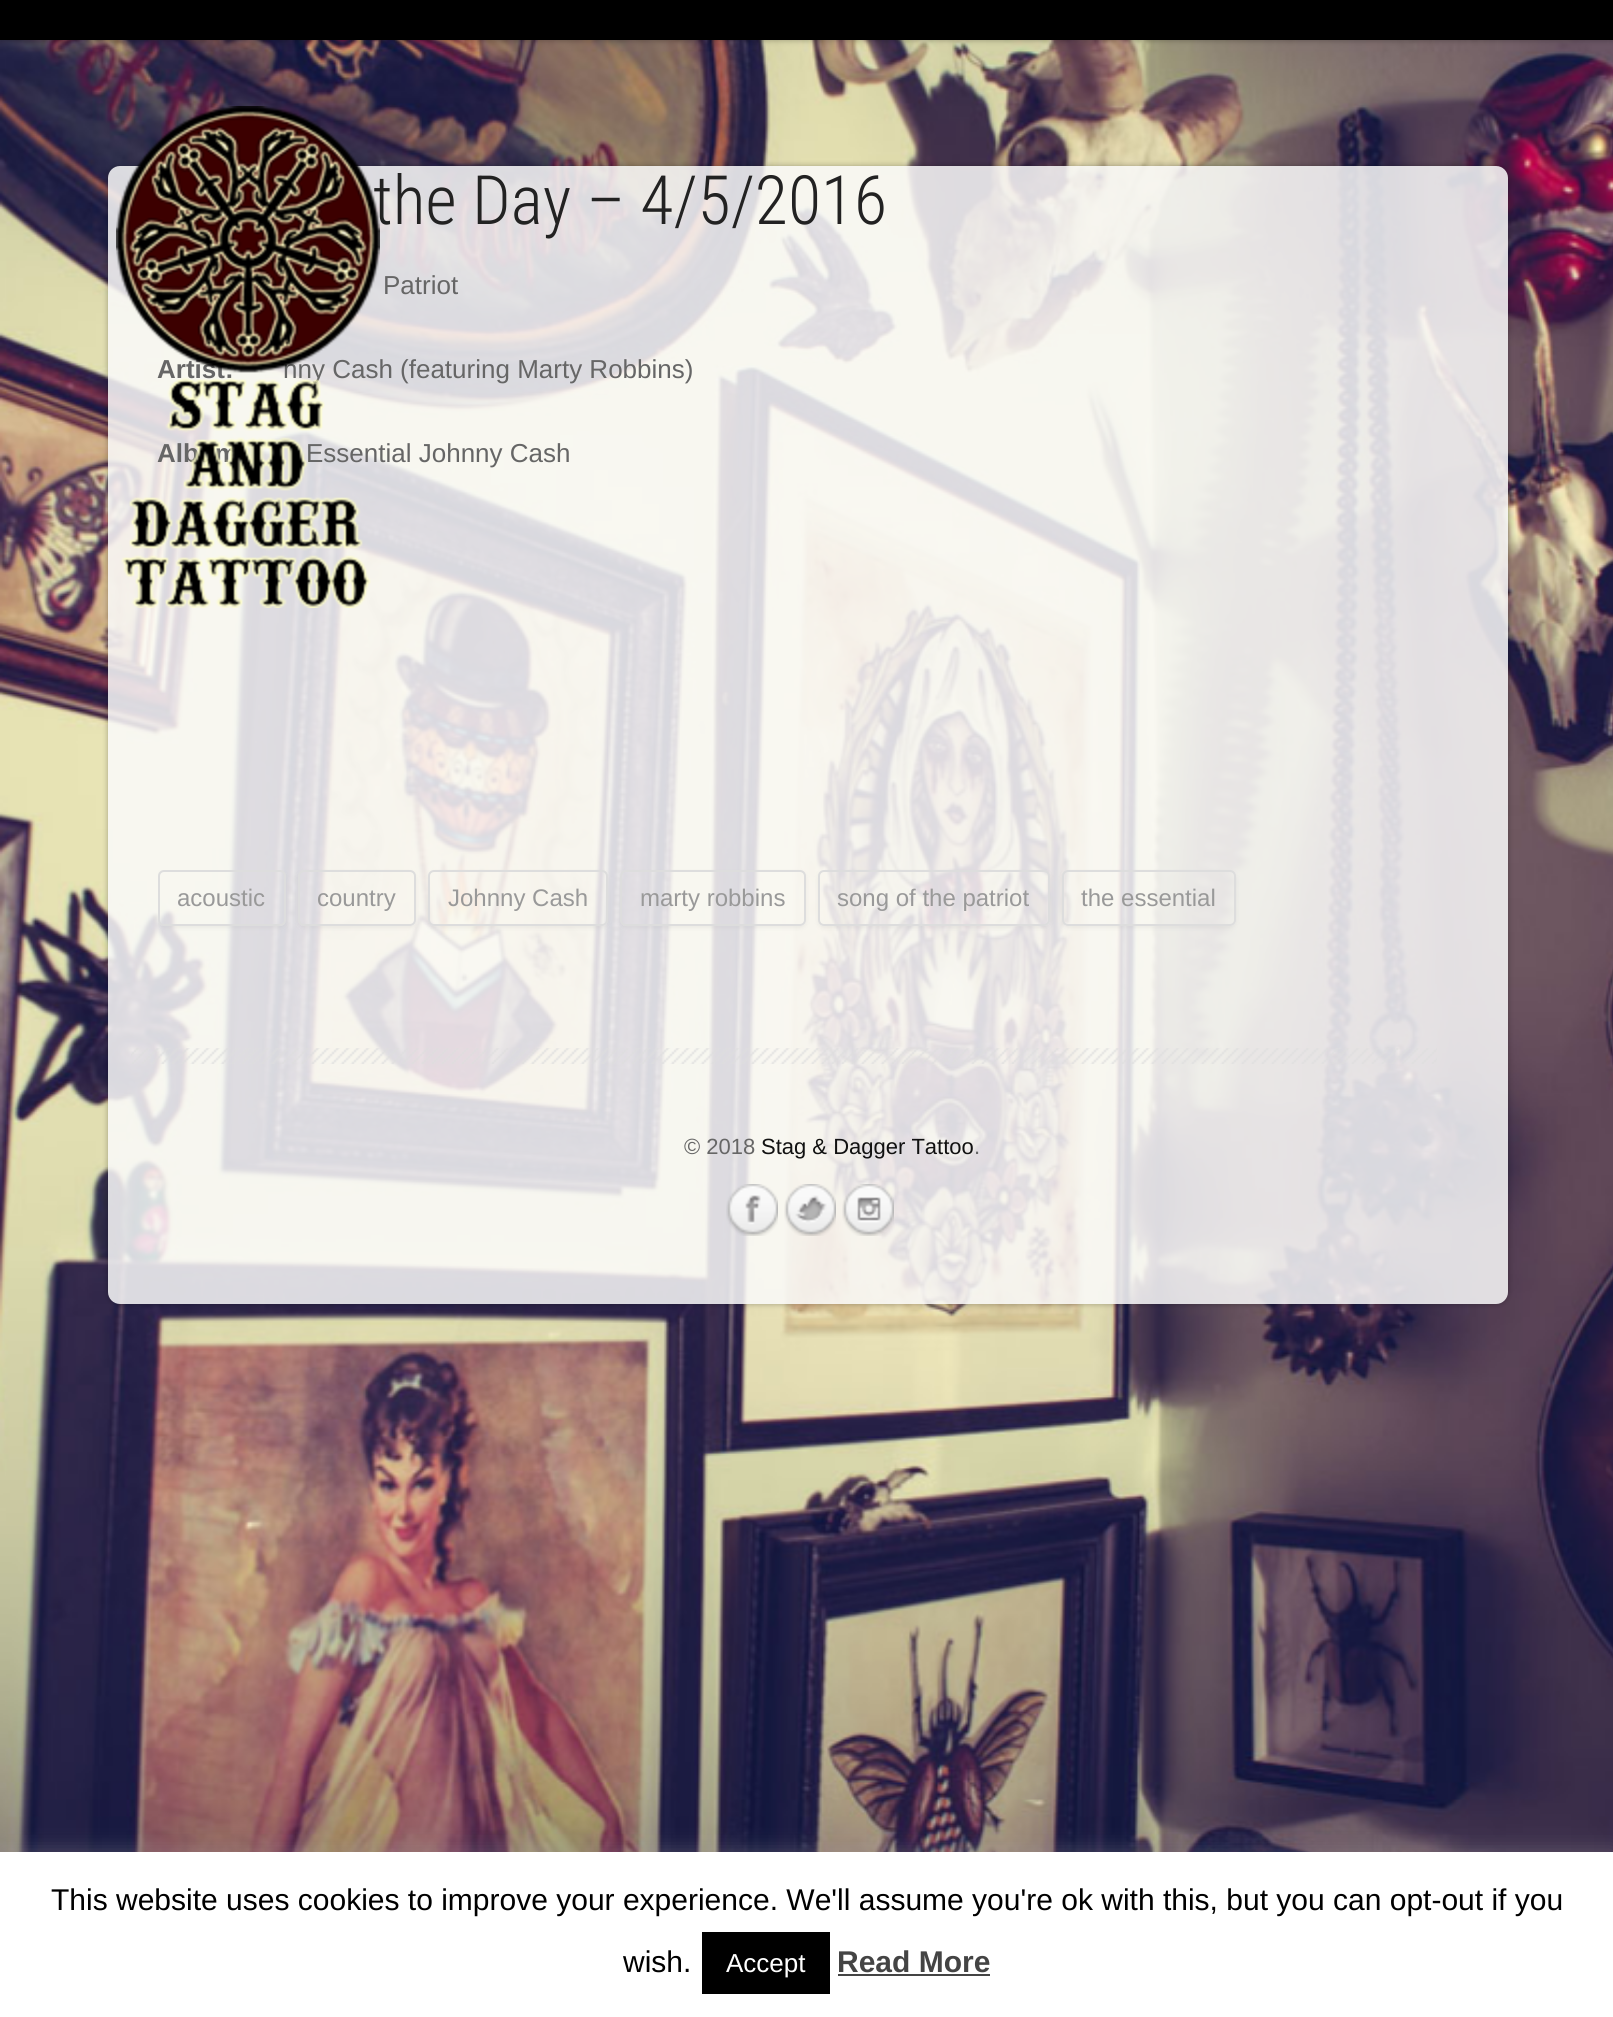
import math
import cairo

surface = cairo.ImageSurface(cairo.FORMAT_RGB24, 1613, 2017)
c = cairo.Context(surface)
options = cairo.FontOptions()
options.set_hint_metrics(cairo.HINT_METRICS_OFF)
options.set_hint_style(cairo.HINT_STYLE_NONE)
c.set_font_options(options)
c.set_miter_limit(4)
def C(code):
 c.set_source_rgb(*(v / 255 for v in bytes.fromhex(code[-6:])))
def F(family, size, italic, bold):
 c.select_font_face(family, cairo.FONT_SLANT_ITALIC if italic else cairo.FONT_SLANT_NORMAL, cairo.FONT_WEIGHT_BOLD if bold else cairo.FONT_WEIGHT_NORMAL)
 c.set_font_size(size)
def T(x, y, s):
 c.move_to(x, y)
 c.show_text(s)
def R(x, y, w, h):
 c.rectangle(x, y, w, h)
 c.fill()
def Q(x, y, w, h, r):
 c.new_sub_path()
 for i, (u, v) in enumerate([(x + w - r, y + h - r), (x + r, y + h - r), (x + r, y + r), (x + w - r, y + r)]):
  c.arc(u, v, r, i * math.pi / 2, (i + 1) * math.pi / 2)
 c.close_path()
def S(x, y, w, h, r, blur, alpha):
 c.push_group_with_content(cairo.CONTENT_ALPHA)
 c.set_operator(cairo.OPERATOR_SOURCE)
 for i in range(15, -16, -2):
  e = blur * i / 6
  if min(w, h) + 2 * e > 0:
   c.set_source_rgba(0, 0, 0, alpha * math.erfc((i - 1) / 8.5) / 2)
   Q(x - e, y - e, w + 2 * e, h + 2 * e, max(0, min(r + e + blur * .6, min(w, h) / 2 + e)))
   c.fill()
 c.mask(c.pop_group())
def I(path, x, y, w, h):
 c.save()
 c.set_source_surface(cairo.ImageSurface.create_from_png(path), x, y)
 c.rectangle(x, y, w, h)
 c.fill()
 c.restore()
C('ffffff')
c.paint()
I('2.png',0,40,1613,1812)
C('000000')
S(0,0,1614,40,0,3,.3)
C('000000')
R(0,0,1613,40)
c.save()
c.set_fill_rule(cairo.FILL_RULE_EVEN_ODD)
c.new_path()
c.move_to(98,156)
c.line_to(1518,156)
c.line_to(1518,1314)
c.line_to(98,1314)
c.close_path()
c.move_to(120,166)
c.line_to(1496,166)
c.curve_to(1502.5,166,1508,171.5,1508,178)
c.line_to(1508,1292)
c.curve_to(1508,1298.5,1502.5,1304,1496,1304)
c.line_to(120,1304)
c.curve_to(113.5,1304,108,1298.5,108,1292)
c.line_to(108,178)
c.curve_to(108,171.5,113.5,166,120,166)
c.close_path()
c.clip()
C('000000')
S(108,166,1400,1138,12,3,.3)
c.restore()
c.set_source_rgba(0.98,0.98,0.98,0.85)
Q(108,166,1400,1138,12)
c.fill()
F('Roboto Condensed Light',68,0,0)
C('222222')
T(373,224,'the Day – 4/5/2016')
F('Liberation Sans',26,0,1)
C('666666')
T(157,378,'Artist:')
F('Liberation Sans',26,0,0)
T(283,378,'nny Cash (featuring Marty Robbins)')
F('Liberation Sans',26,0,1)
T(157,462,'Album')
F('Liberation Sans',26,0,0)
T(306,462,'Essential Johnny Cash')
I('1.png',116,106,264,502)
T(383,294,'Patriot')
c.save()
c.rectangle(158,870,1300,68)
c.clip()
c.set_fill_rule(cairo.FILL_RULE_EVEN_ODD)
c.new_path()
c.move_to(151,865)
c.line_to(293,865)
c.line_to(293,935)
c.line_to(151,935)
c.close_path()
c.move_to(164,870)
c.line_to(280,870)
c.curve_to(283.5,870,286,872.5,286,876)
c.line_to(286,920)
c.curve_to(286,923.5,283.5,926,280,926)
c.line_to(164,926)
c.curve_to(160.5,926,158,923.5,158,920)
c.line_to(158,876)
c.curve_to(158,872.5,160.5,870,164,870)
c.close_path()
c.clip()
C('b4b4b4')
S(158,872,128,56,6,2,.2)
c.restore()
Q(159,871,126,54,5)
C('dddddd')
c.stroke()
F('Liberation Sans',24,0,0)
C('999999')
T(177,906,'acoustic')
c.save()
c.set_fill_rule(cairo.FILL_RULE_EVEN_ODD)
c.new_path()
c.move_to(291,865)
c.line_to(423,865)
c.line_to(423,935)
c.line_to(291,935)
c.close_path()
c.move_to(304,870)
c.line_to(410,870)
c.curve_to(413.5,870,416,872.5,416,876)
c.line_to(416,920)
c.curve_to(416,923.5,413.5,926,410,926)
c.line_to(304,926)
c.curve_to(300.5,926,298,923.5,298,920)
c.line_to(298,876)
c.curve_to(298,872.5,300.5,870,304,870)
c.close_path()
c.clip()
C('b4b4b4')
S(298,872,118,56,6,2,.2)
c.restore()
Q(299,871,116,54,5)
C('dddddd')
c.stroke()
C('999999')
T(317,906,'country')
c.save()
c.set_fill_rule(cairo.FILL_RULE_EVEN_ODD)
c.new_path()
c.move_to(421,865)
c.line_to(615,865)
c.line_to(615,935)
c.line_to(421,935)
c.close_path()
c.move_to(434,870)
c.line_to(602,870)
c.curve_to(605.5,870,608,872.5,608,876)
c.line_to(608,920)
c.curve_to(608,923.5,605.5,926,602,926)
c.line_to(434,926)
c.curve_to(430.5,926,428,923.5,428,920)
c.line_to(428,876)
c.curve_to(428,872.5,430.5,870,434,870)
c.close_path()
c.clip()
C('b4b4b4')
S(428,872,180,56,6,2,.2)
c.restore()
Q(429,871,178,54,5)
C('dddddd')
c.stroke()
C('999999')
T(448,906,'Johnny Cash')
c.save()
c.set_fill_rule(cairo.FILL_RULE_EVEN_ODD)
c.new_path()
c.move_to(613,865)
c.line_to(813,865)
c.line_to(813,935)
c.line_to(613,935)
c.close_path()
c.move_to(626,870)
c.line_to(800,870)
c.curve_to(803.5,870,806,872.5,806,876)
c.line_to(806,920)
c.curve_to(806,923.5,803.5,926,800,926)
c.line_to(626,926)
c.curve_to(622.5,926,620,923.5,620,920)
c.line_to(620,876)
c.curve_to(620,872.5,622.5,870,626,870)
c.close_path()
c.clip()
C('b4b4b4')
S(620,872,186,56,6,2,.2)
c.restore()
Q(621,871,184,54,5)
C('dddddd')
c.stroke()
C('999999')
T(640,906,'marty robbins')
c.save()
c.set_fill_rule(cairo.FILL_RULE_EVEN_ODD)
c.new_path()
c.move_to(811,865)
c.line_to(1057,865)
c.line_to(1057,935)
c.line_to(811,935)
c.close_path()
c.move_to(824,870)
c.line_to(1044,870)
c.curve_to(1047.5,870,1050,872.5,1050,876)
c.line_to(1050,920)
c.curve_to(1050,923.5,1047.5,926,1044,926)
c.line_to(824,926)
c.curve_to(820.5,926,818,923.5,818,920)
c.line_to(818,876)
c.curve_to(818,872.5,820.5,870,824,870)
c.close_path()
c.clip()
C('b4b4b4')
S(818,872,232,56,6,2,.2)
c.restore()
Q(819,871,230,54,5)
C('dddddd')
c.stroke()
C('999999')
T(837,906,'song of the patriot')
c.save()
c.set_fill_rule(cairo.FILL_RULE_EVEN_ODD)
c.new_path()
c.move_to(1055,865)
c.line_to(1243,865)
c.line_to(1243,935)
c.line_to(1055,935)
c.close_path()
c.move_to(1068,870)
c.line_to(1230,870)
c.curve_to(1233.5,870,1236,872.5,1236,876)
c.line_to(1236,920)
c.curve_to(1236,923.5,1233.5,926,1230,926)
c.line_to(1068,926)
c.curve_to(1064.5,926,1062,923.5,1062,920)
c.line_to(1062,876)
c.curve_to(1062,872.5,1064.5,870,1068,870)
c.close_path()
c.clip()
C('b4b4b4')
S(1062,872,174,56,6,2,.2)
c.restore()
Q(1063,871,172,54,5)
C('dddddd')
c.stroke()
C('999999')
T(1081,906,'the essential')
I('3.png',131,1048,1306,16)
F('Liberation Sans',22,0,0)
C('666666')
T(684,1154,'© 2018')
C('111111')
T(761,1154,'Stag & Dagger Tattoo')
C('666666')
T(974,1154,'.')
I('4.png',726,1184,52,52)
I('5.png',784,1184,52,52)
I('6.png',842,1184,52,52)
C('acabab')
S(0,1850,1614,166,0,10,.3)
C('ffffff')
R(0,1852,1613,165)
F('Liberation Sans',30,0,0)
C('000000')
T(51,1910,'This website uses cookies to improve your experience. We\'ll assume you\'re ok with this, but you can opt-out if you')
T(623,1972,'wish.')
R(702,1932,128,62)
F('Liberation Sans',26,0,0)
C('ffffff')
T(726,1972,'Accept')
F('Liberation Sans',30,0,1)
C('444444')
T(837,1972,'Read More')
R(838,1974,152,2)
surface.write_to_png('o.png')
